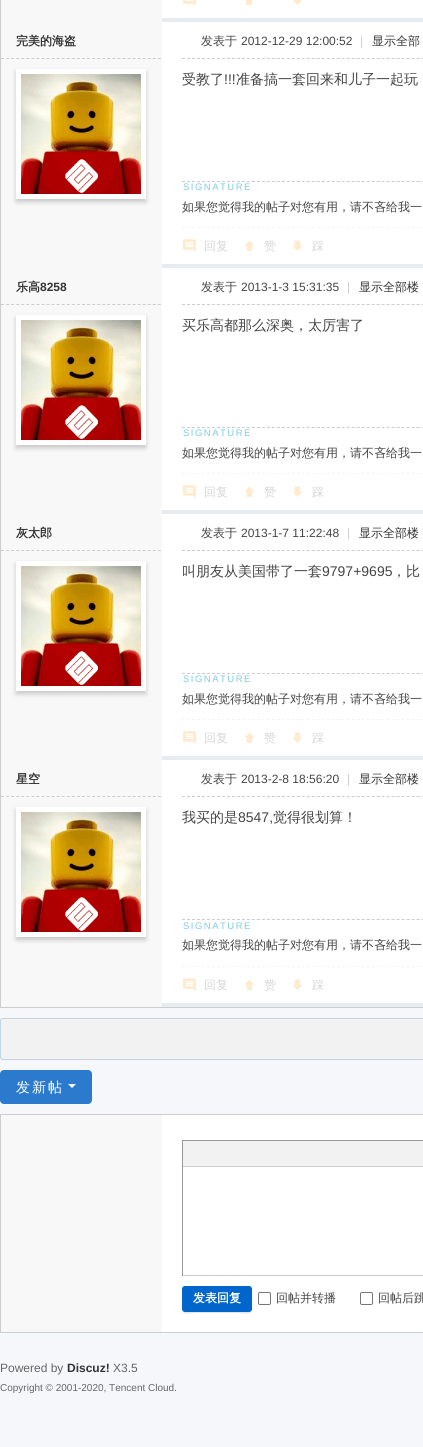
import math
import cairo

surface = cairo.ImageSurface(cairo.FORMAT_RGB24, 423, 1447)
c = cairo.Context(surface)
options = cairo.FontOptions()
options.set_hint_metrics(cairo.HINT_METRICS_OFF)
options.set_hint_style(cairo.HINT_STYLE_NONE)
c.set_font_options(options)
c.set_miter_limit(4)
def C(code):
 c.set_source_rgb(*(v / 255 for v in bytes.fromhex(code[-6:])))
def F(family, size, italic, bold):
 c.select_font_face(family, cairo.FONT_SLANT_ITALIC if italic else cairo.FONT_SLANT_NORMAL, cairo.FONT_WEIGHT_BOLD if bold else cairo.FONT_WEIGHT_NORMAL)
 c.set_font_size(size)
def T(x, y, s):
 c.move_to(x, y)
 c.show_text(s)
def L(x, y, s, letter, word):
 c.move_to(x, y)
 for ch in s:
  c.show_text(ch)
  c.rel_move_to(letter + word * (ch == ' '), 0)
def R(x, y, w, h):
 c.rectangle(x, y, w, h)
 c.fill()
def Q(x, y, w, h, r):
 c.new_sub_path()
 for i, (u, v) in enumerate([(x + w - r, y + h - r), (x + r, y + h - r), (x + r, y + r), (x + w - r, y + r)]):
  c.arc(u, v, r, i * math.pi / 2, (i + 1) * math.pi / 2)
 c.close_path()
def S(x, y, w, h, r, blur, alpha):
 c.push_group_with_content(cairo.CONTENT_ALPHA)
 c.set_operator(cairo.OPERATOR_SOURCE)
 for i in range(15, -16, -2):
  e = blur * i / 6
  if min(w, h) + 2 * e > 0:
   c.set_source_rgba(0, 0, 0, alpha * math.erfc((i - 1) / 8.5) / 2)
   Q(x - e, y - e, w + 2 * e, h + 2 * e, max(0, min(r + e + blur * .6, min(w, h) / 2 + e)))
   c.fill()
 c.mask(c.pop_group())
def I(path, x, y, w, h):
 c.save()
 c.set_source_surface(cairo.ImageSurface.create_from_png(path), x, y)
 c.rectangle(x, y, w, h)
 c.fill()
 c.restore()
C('f5f7fa')
c.paint()
C('ffffff')
R(162,0,261,1003)
c.rectangle(.5,-.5,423,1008)
C('cdcdcd')
c.set_line_width(1)
c.stroke()
C('f8f8f8')
R(1,0,161,1007)
I('1.png',183,0,13,6)
C('ffebcc')
R(246,0,6,5)
I('2.png',292,0,10,5)
C('e5edf2')
R(162,18,261,4)
c.new_path()
c.move_to(1,58.5)
c.line_to(161,58.5)
C('cdcdcd')
c.set_dash([3,2.06])
c.stroke()
F('WenQuanYi Zen Hei',12,0,1)
C('333333')
T(16,45,'完美的海盗')
C('000000')
S(16,72,130,130,0,2.5,.2)
C('ffffff')
R(16,69,130,130)
I('3.png',21,74,120,120)
c.new_path()
c.move_to(182,58.5)
c.line_to(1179,58.5)
C('cdcdcd')
c.set_dash([3,1.99])
c.stroke()
F('WenQuanYi Zen Hei Medium',12,0,0)
C('444444')
T(201,45,'发表于')
F('Liberation Sans',12,0,0)
T(241,45,'2012-12-29 12:00:52')
C('cccccc')
T(360,45,'|')
F('WenQuanYi Zen Hei Medium',12,0,0)
C('333333')
T(372,45,'显示全部')
F('WenQuanYi Zen Hei Medium',14,0,0)
C('444444')
T(182,84,'受教了')
F('Liberation Sans',14,0,0)
T(224,84,'!!!')
F('WenQuanYi Zen Hei Medium',14,0,0)
T(236,84,'准备搞一套回来和儿子一起玩')
c.new_path()
c.move_to(182,181.5)
c.line_to(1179,181.5)
C('cccccc')
c.stroke()
F('Liberation Sans',9.5,0,0)
C('7fcce5')
L(183,190,'SIGNATURE',1.5,0)
F('WenQuanYi Zen Hei Medium',12,0,0)
C('444444')
T(182,211,'如果您觉得我的帖子对您有用，请不吝给我一')
c.new_path()
c.move_to(182,227.5)
c.line_to(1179,227.5)
C('f5f5f5')
c.stroke()
I('4.png',183,239,13,13)
C('d6d6d6')
T(204,250,'回复')
I('5.png',244,240,11,11)
T(264,250,'赞')
I('6.png',292,240,11,11)
T(312,250,'踩')
C('e5edf2')
R(162,264,261,4)
c.new_path()
c.move_to(1,304.5)
c.line_to(161,304.5)
C('cdcdcd')
c.set_dash([3,2.06])
c.stroke()
F('WenQuanYi Zen Hei',12,0,1)
C('333333')
T(16,291,'乐高')
F('Liberation Sans',12,0,1)
T(40,291,'8258')
C('000000')
S(16,318,130,130,0,2.5,.2)
C('ffffff')
R(16,315,130,130)
I('7.png',21,320,120,120)
c.new_path()
c.move_to(182,304.5)
c.line_to(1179,304.5)
C('cdcdcd')
c.set_dash([3,1.99])
c.stroke()
F('WenQuanYi Zen Hei Medium',12,0,0)
C('444444')
T(201,291,'发表于')
F('Liberation Sans',12,0,0)
T(241,291,'2013-1-3 15:31:35')
C('cccccc')
T(347,291,'|')
F('WenQuanYi Zen Hei Medium',12,0,0)
C('333333')
T(359,291,'显示全部楼')
F('WenQuanYi Zen Hei Medium',14,0,0)
C('444444')
T(182,330,'买乐高都那么深奥，太厉害了')
c.new_path()
c.move_to(182,427.5)
c.line_to(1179,427.5)
C('cccccc')
c.stroke()
F('Liberation Sans',9.5,0,0)
C('7fcce5')
L(183,436,'SIGNATURE',1.5,0)
F('WenQuanYi Zen Hei Medium',12,0,0)
C('444444')
T(182,457,'如果您觉得我的帖子对您有用，请不吝给我一')
c.new_path()
c.move_to(182,473.5)
c.line_to(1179,473.5)
C('f5f5f5')
c.stroke()
I('8.png',183,485,13,13)
C('d6d6d6')
T(204,496,'回复')
I('9.png',244,486,11,11)
T(264,496,'赞')
I('10.png',292,486,11,11)
T(312,496,'踩')
C('e5edf2')
R(162,510,261,4)
c.new_path()
c.move_to(1,550.5)
c.line_to(161,550.5)
C('cdcdcd')
c.set_dash([3,2.06])
c.stroke()
F('WenQuanYi Zen Hei',12,0,1)
C('333333')
T(16,537,'灰太郎')
C('000000')
S(16,564,130,130,0,2.5,.2)
C('ffffff')
R(16,561,130,130)
I('3.png',21,566,120,120)
c.new_path()
c.move_to(182,550.5)
c.line_to(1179,550.5)
C('cdcdcd')
c.set_dash([3,1.99])
c.stroke()
F('WenQuanYi Zen Hei Medium',12,0,0)
C('444444')
T(201,537,'发表于')
F('Liberation Sans',12,0,0)
T(241,537,'2013-1-7 11:22:48')
C('cccccc')
T(347,537,'|')
F('WenQuanYi Zen Hei Medium',12,0,0)
C('333333')
T(359,537,'显示全部楼')
F('WenQuanYi Zen Hei Medium',14,0,0)
C('444444')
T(182,576,'叫朋友从美国带了一套')
F('Liberation Sans',14,0,0)
T(322,576,'9797+9695')
F('WenQuanYi Zen Hei Medium',14,0,0)
T(392,576,'，比')
c.new_path()
c.move_to(182,673.5)
c.line_to(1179,673.5)
C('cccccc')
c.stroke()
F('Liberation Sans',9.5,0,0)
C('7fcce5')
L(183,682,'SIGNATURE',1.5,0)
F('WenQuanYi Zen Hei Medium',12,0,0)
C('444444')
T(182,703,'如果您觉得我的帖子对您有用，请不吝给我一')
c.new_path()
c.move_to(182,719.5)
c.line_to(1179,719.5)
C('f5f5f5')
c.stroke()
I('11.png',183,731,13,13)
C('d6d6d6')
T(204,742,'回复')
I('12.png',244,732,11,11)
T(264,742,'赞')
I('13.png',292,732,11,11)
T(312,742,'踩')
C('e5edf2')
R(162,756,261,4)
c.new_path()
c.move_to(1,796.5)
c.line_to(161,796.5)
C('cdcdcd')
c.set_dash([3,2.06])
c.stroke()
F('WenQuanYi Zen Hei',12,0,1)
C('333333')
T(16,783,'星空')
C('000000')
S(16,810,130,130,0,2.5,.2)
C('ffffff')
R(16,807,130,130)
I('14.png',21,812,120,120)
c.new_path()
c.move_to(182,796.5)
c.line_to(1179,796.5)
C('cdcdcd')
c.set_dash([3,1.99])
c.stroke()
F('WenQuanYi Zen Hei Medium',12,0,0)
C('444444')
T(201,783,'发表于')
F('Liberation Sans',12,0,0)
T(241,783,'2013-2-8 18:56:20')
C('cccccc')
T(347,783,'|')
F('WenQuanYi Zen Hei Medium',12,0,0)
C('333333')
T(359,783,'显示全部楼')
F('WenQuanYi Zen Hei Medium',14,0,0)
C('444444')
T(182,822,'我买的是')
F('Liberation Sans',14,0,0)
T(238,822,'8547,')
F('WenQuanYi Zen Hei Medium',14,0,0)
T(273,822,'觉得很划算！')
c.new_path()
c.move_to(182,919.5)
c.line_to(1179,919.5)
C('cccccc')
c.stroke()
F('Liberation Sans',9.5,0,0)
C('7fcce5')
L(183,929,'SIGNATURE',1.5,0)
F('WenQuanYi Zen Hei Medium',12,0,0)
C('444444')
T(182,949,'如果您觉得我的帖子对您有用，请不吝给我一')
c.new_path()
c.move_to(182,966.5)
c.line_to(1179,966.5)
C('f5f5f5')
c.stroke()
I('15.png',183,978,13,13)
C('d6d6d6')
T(204,989,'回复')
I('16.png',244,980,11,10)
T(264,989,'赞')
I('17.png',292,979,11,11)
T(312,989,'踩')
C('e5edf2')
R(162,1003,261,4)
C('f5f5f5')
c.new_path()
c.move_to(0,1057)
c.line_to(0,1058)
c.curve_to(0,1060,1,1061,3,1061)
c.line_to(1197,1061)
c.curve_to(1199,1061,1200,1060,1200,1058)
c.line_to(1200,1057)
c.curve_to(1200,1059,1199,1060,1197,1060)
c.line_to(3,1060)
c.curve_to(1,1060,0,1059,0,1057)
c.close_path()
c.fill()
C('f2f2f2')
Q(.5,1018.5,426,41,2.5)
c.fill_preserve()
C('c2d5e3')
c.set_dash([])
c.stroke()
C('2b7acd')
Q(0,1070,92,34,4)
c.fill()
F('WenQuanYi Zen Hei Medium',14,0,0)
C('ffffff')
L(16,1092,'发新帖',2,0)
c.new_path()
c.move_to(68,1084)
c.line_to(76,1084)
c.line_to(72,1088)
c.close_path()
c.fill()
R(162,1115,261,217)
c.rectangle(.5,1114.5,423,218)
C('cdcdcd')
c.stroke()
C('f8f8f8')
R(1,1115,161,217)
C('999999')
R(182,1140,241,1)
C('cccccc')
R(182,1275,241,1)
C('999999')
R(182,1140,1,136)
C('f2f2f2')
R(183,1141,240,25)
C('cdcdcd')
R(183,1166,240,1)
C('e5e5e5')
c.new_path()
c.move_to(182,1309)
c.curve_to(182,1316,191,1313,196,1313)
c.line_to(238,1313)
c.curve_to(243,1313,252,1316,252,1309)
c.curve_to(252,1311,251,1312,249,1312)
c.line_to(185,1312)
c.curve_to(183,1312,182,1311,182,1309)
c.close_path()
c.fill()
C('0066cc')
Q(182.5,1286.5,69,25,2.5)
c.fill_preserve()
c.stroke()
F('WenQuanYi Zen Hei',12,0,1)
C('ffffff')
T(193,1302,'发表回复')
Q(258.5,1292.5,12,12,1.5)
C('767676')
c.stroke()
F('WenQuanYi Zen Hei Medium',12,0,0)
C('444444')
T(276,1302,'回帖并转播')
Q(360.5,1292.5,12,12,1.5)
C('767676')
c.stroke()
C('444444')
T(378,1302,'回帖后跳')
F('Liberation Sans',12,0,0)
C('666666')
T(0,1372,'Powered by')
F('Liberation Sans',12,0,1)
C('333333')
T(67,1372,'Discuz!')
F('Liberation Sans',12,0,0)
C('666666')
T(113,1372,'X3.5')
F('Liberation Sans',10,0,0)
T(0,1391,'Copyright © 2001-2020, Tencent Cloud.')
surface.write_to_png('o.png')
